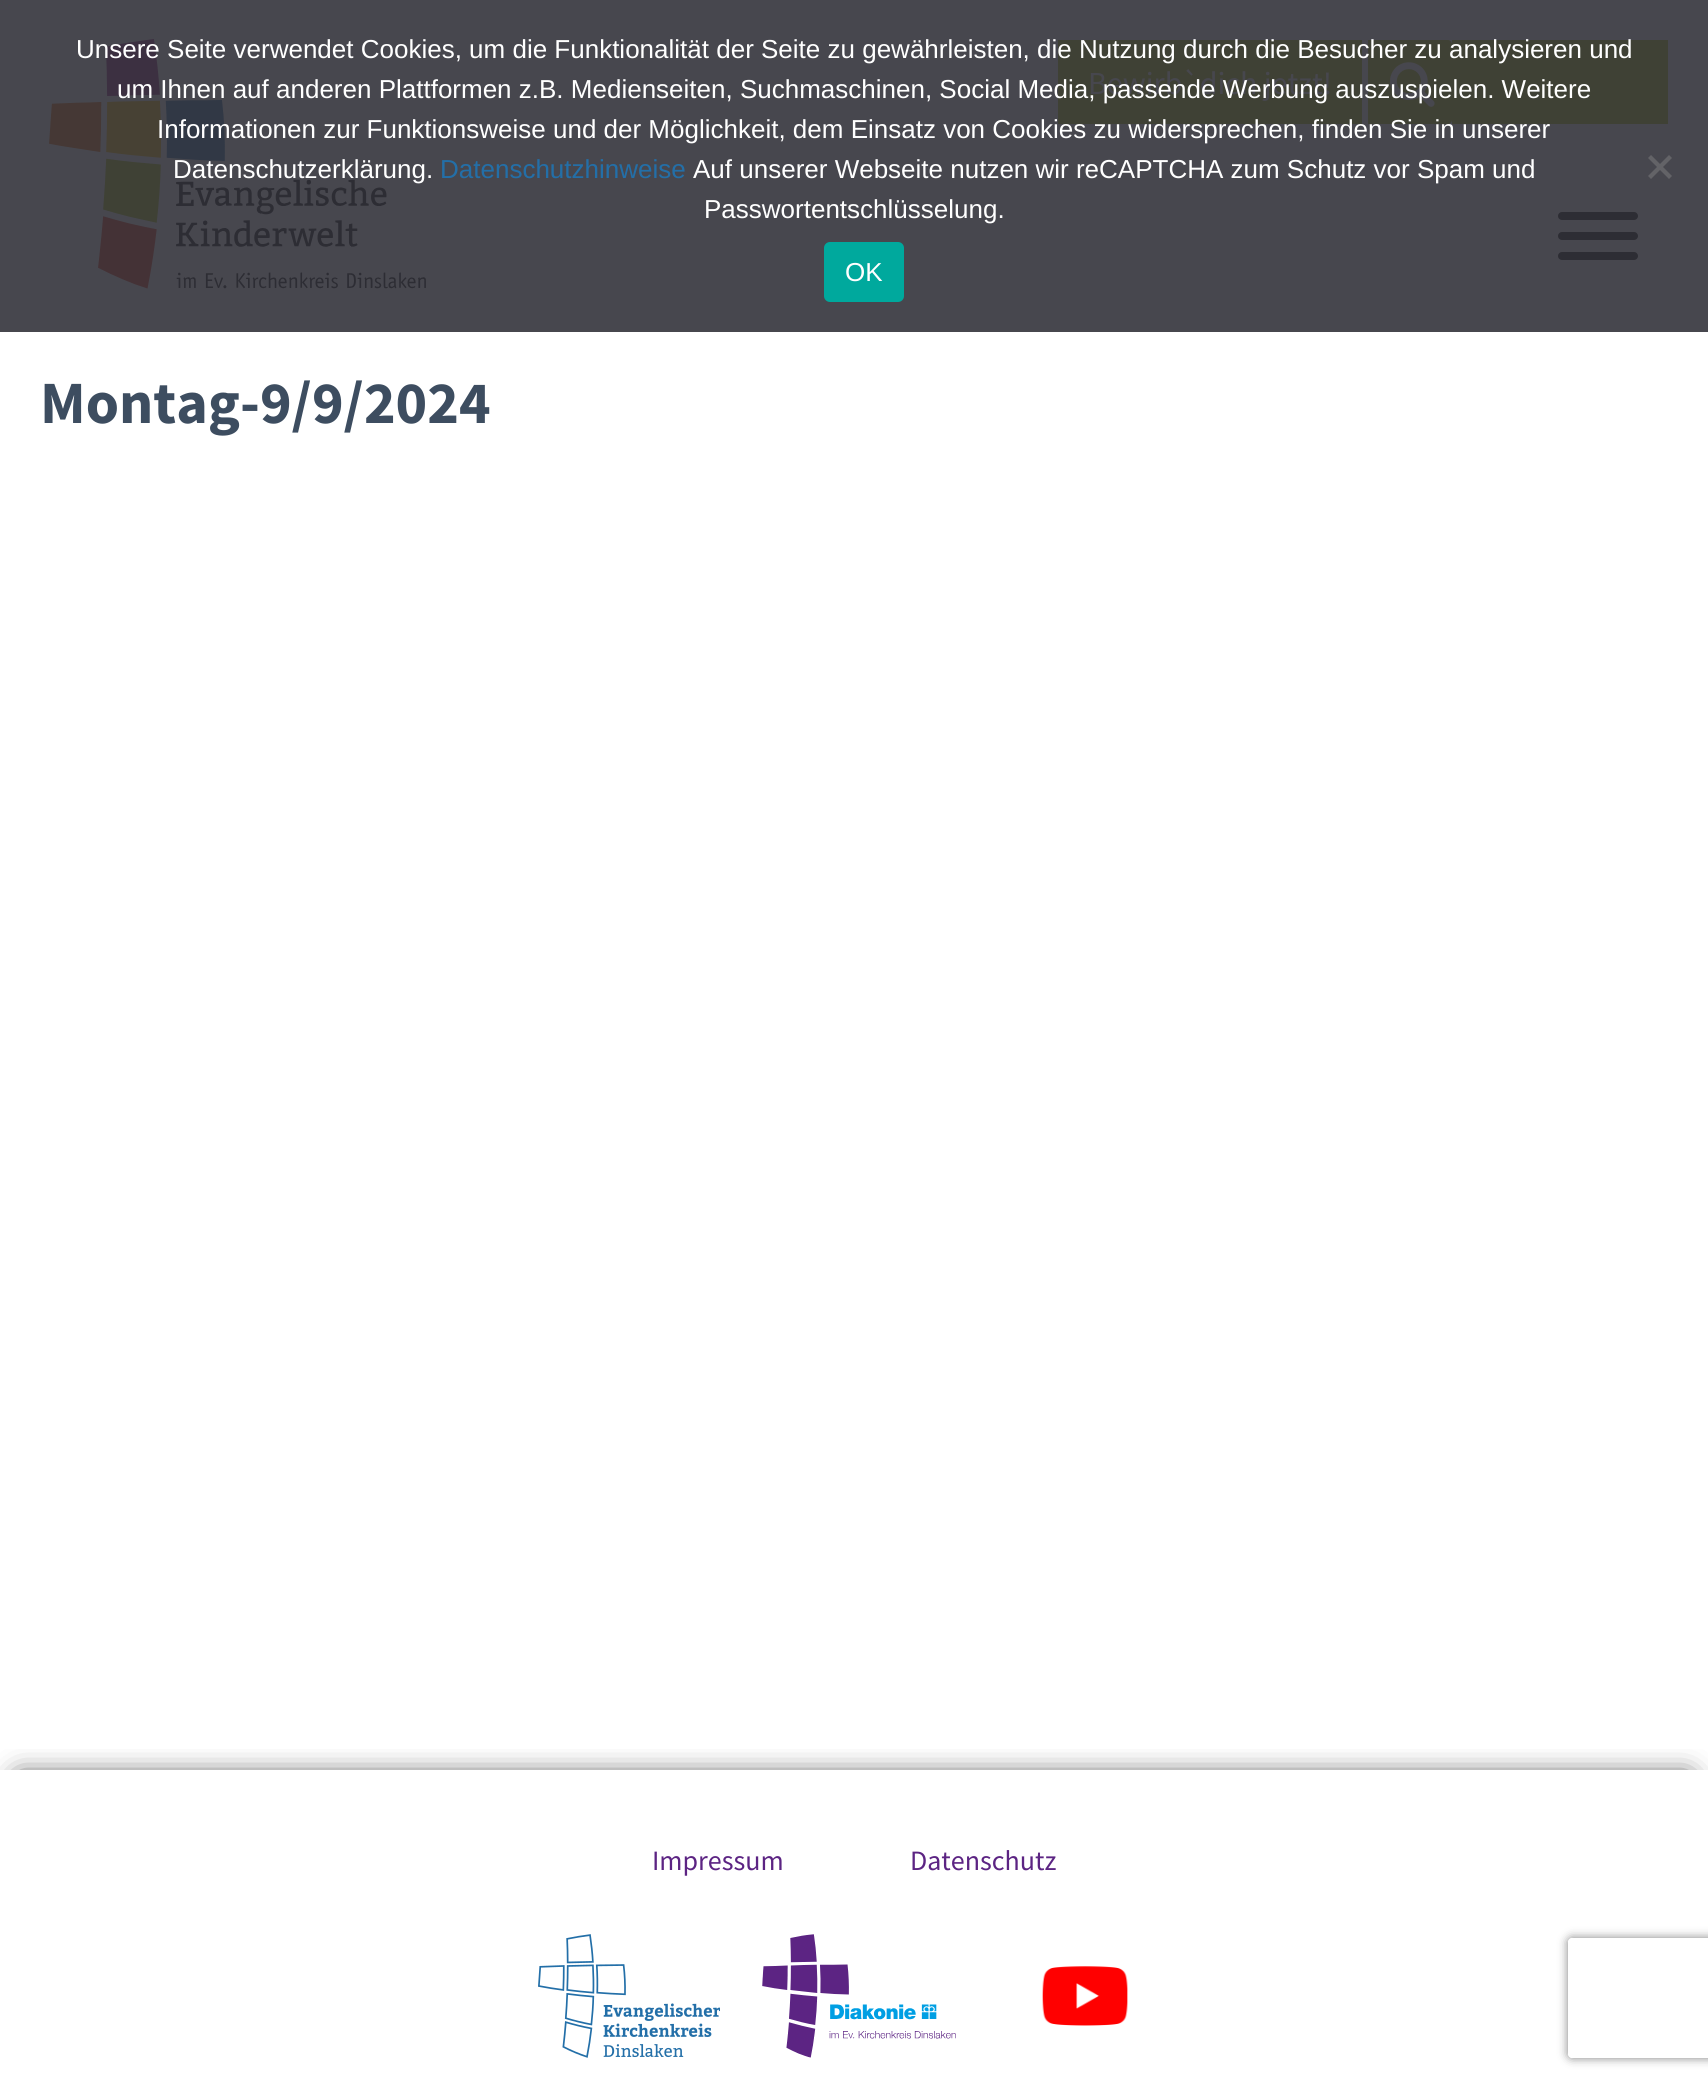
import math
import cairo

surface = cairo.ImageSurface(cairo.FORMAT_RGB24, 1708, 2086)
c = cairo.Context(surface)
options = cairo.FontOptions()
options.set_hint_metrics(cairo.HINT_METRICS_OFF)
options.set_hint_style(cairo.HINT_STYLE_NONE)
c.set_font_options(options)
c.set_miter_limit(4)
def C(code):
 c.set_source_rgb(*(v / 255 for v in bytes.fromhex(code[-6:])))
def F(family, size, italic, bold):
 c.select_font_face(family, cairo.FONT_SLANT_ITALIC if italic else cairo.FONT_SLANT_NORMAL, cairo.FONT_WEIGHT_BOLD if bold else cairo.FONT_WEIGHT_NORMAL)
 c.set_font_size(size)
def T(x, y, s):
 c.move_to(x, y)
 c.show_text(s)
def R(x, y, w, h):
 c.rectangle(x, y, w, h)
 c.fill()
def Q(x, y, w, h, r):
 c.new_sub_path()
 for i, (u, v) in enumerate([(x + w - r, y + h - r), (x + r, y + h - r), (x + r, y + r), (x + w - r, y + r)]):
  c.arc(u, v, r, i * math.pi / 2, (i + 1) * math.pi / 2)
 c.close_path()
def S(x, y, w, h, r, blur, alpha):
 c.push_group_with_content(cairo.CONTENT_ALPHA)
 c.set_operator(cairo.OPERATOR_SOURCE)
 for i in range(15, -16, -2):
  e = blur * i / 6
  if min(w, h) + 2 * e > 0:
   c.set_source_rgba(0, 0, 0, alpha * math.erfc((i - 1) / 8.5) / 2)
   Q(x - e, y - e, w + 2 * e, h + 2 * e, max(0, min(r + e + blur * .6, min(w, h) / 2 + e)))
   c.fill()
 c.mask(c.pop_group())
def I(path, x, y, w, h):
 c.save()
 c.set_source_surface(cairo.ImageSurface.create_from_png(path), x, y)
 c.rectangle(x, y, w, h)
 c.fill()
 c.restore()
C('ffffff')
c.paint()
C('47474e')
R(0,0,1708,332)
I('1.png',49,39,377,250)
C('3f4135')
R(1058,40,304,84)
c.new_path()
c.move_to(1368,40)
c.line_to(1448,40)
c.curve_to(1450,40,1452,42,1452,44)
c.line_to(1452,120)
c.curve_to(1452,122,1450,124,1448,124)
c.line_to(1368,124)
c.close_path()
c.fill()
I('2.png',1390,62,45,45)
R(1452,40,216,84)
F('Liberation Sans',26,0,0)
C('ffffff')
T(76,58,'Unsere Seite verwendet Cookies, um die Funktionalität der Seite zu gewährleisten, die Nutzung durch die Besucher zu analysieren und')
F('Source Sans Pro',32,0,0)
C('47474e')
T(1088,94,'Bewirb`dich jetzt!')
F('Liberation Sans',26,0,0)
C('ffffff')
T(117,98,'um Ihnen auf anderen Plattformen z.B. Medienseiten, Suchmaschinen, Social Media, passende Werbung auszuspielen. Weitere')
T(157,138,'Informationen zur Funktionsweise und der Möglichkeit, dem Einsatz von Cookies zu widersprechen, finden Sie in unserer')
T(173,178,'Datenschutzerklärung.')
C('236fa8')
T(440,178,'Datenschutzhinweise')
C('ffffff')
T(693,178,'Auf unserer Webseite nutzen wir reCAPTCHA zum Schutz vor Spam und')
T(704,218,'Passwortentschlüsselung.')
C('636367')
c.new_path()
c.move_to(1669,155)
c.line_to(1672,158)
c.line_to(1651,179)
c.line_to(1648,176)
c.close_path()
c.fill()
c.new_path()
c.move_to(1648,158)
c.line_to(1651,155)
c.line_to(1672,176)
c.line_to(1669,179)
c.close_path()
c.fill()
C('00a99d')
Q(824,242,80,60,6)
c.fill()
C('ffffff')
T(845,281,'OK')
C('2d2d34')
Q(1558,252,80,8,4)
c.fill()
Q(1558,212,80,8,4)
c.fill()
Q(1558,232,80,8,4)
c.fill()
F('Source Sans Pro',60,0,1)
C('3d4d60')
T(40,423,'Montag-9/9/2024')
c.save()
c.rectangle(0,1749,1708,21)
c.clip()
C('000000')
S(20,1780,1668,276,0,15,1)
c.restore()
F('Source Sans Pro',28,0,0)
C('5c2483')
T(652,1870,'Impressum')
T(910,1870,'Datenschutz')
I('3.png',538,1934,182,124)
I('4.png',762,1934,194,124)
I('5.png',1042,1966,86,60)
c.save()
c.set_fill_rule(cairo.FILL_RULE_EVEN_ODD)
c.new_path()
c.move_to(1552,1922)
c.line_to(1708,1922)
c.line_to(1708,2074)
c.line_to(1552,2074)
c.close_path()
c.move_to(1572,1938)
c.line_to(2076,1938)
c.curve_to(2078,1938,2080,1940,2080,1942)
c.line_to(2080,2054)
c.curve_to(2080,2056,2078,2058,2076,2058)
c.line_to(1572,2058)
c.curve_to(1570,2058,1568,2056,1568,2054)
c.line_to(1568,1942)
c.curve_to(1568,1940,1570,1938,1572,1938)
c.close_path()
c.clip()
C('808080')
S(1568,1938,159,120,4,5,1)
c.restore()
surface.write_to_png('o.png')
